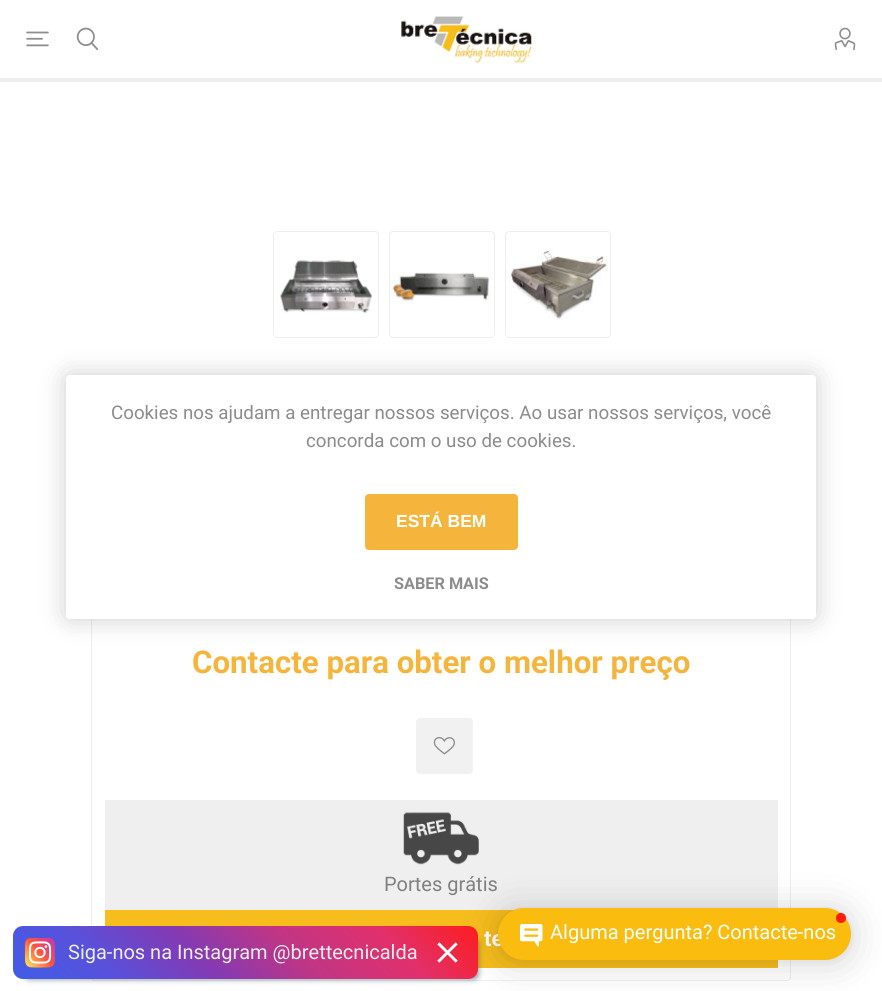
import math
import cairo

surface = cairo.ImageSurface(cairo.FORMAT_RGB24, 882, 991)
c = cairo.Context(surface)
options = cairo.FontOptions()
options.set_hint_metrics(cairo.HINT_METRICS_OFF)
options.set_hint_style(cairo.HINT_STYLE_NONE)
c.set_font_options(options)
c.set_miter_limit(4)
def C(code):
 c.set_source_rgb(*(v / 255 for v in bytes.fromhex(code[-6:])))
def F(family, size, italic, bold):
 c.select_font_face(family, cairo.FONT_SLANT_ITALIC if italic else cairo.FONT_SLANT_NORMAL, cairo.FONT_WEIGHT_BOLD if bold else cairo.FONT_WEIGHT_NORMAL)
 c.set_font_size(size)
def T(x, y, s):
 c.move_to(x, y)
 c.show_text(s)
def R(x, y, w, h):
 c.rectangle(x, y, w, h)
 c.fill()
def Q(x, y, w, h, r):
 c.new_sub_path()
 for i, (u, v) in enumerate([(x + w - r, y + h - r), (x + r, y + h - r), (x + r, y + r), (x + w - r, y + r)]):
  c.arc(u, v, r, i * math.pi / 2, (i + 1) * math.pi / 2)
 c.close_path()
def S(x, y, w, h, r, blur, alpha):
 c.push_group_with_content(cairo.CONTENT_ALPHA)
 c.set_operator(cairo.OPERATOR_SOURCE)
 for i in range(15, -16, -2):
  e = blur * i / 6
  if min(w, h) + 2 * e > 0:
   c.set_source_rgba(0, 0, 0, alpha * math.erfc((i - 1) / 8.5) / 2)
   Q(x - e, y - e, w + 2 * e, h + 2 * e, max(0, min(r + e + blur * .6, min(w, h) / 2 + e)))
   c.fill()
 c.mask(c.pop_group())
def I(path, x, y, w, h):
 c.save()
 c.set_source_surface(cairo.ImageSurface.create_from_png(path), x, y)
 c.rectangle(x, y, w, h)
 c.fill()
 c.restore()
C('ffffff')
c.paint()
Q(273.5,231.5,105,106,3.5)
C('eeeeee')
c.set_line_width(1)
c.stroke()
Q(389.5,231.5,105,106,3.5)
c.stroke()
Q(505.5,231.5,105,106,3.5)
c.stroke()
Q(91.5,599.5,699,381,3.5)
c.stroke()
C('000000')
S(66,375,750,244,4,12.5,.2)
C('ffffff')
Q(66,375,750,244,4)
c.fill()
F('Roboto',18.75,0,0)
C('8c8c8c')
T(111,419,'Cookies nos ajudam a entregar nossos serviços. Ao usar nossos serviços, você')
T(306,447,'concorda com o uso de cookies.')
C('f5b53d')
Q(365,494,153,56,4)
c.fill()
F('Liberation Sans',17.5,0,1)
C('ffffff')
T(396,527,'ESTÁ BEM')
F('Roboto',16.25,0,1)
C('8c8c8c')
T(394,589,'SABER MAIS')
C('eeeeee')
R(0,78,882,4)
I('1.png',26,31,23,16)
I('2.png',76,27,23,24)
I('3.png',401,16,131,48)
I('4.png',834,27,22,23)
I('5.png',274,233,98,80)
I('6.png',390,272,101,32)
I('7.png',507,233,103,86)
F('Roboto',31.25,0,1)
C('f5b53d')
T(192,673,'Contacte para obter o melhor preço')
C('f1f1f1')
Q(416,718,57,56,4)
c.fill()
I('8.png',433,737,22,18)
C('efefef')
R(105,800,673,110)
I('9.png',403,812,76,53)
F('Roboto',20,0,0)
C('808080')
T(384,891,'Portes grátis')
C('f6bd1d')
R(105,910,673,58)
F('Roboto',22,0,1)
C('ffffff')
T(484,946,'te')
C('000000')
S(498,910,353,53,26.5,20,.16)
S(498,909,353,52,26,4,.06)
C('f9bc0f')
Q(498,908,353,52,26)
c.fill()
c.set_source_rgba(1,0,0,0.85)
c.arc(841,918,5,0,2 * math.pi)
c.fill()
I('10.png',520,924,23,23)
F('Roboto',20,0,0)
C('ffffff')
T(550,939,'Alguma pergunta? Contacte-nos')
C('223c50')
S(25,939,453,40,4,3,.6)
gradient = cairo.LinearGradient(116,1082,374,823)
gradient.add_color_stop_rgba(0,0.251,0.365,0.902,1)
gradient.add_color_stop_rgba(.2,0.345,0.318,0.859,1)
gradient.add_color_stop_rgba(.4,0.514,0.227,0.706,1)
gradient.add_color_stop_rgba(.6,0.757,0.208,0.518,1)
gradient.add_color_stop_rgba(.8,0.882,0.188,0.424,1)
gradient.add_color_stop_rgba(1,0.992,0.114,0.114,1)
c.set_source(gradient)
Q(13,926,465,53,10)
c.fill()
I('11.png',25,938,30,30)
C('eeeeee')
T(68,959,'Siga-nos na Instagram @brettecnicalda')
I('12.png',437,942,21,21)
surface.write_to_png('o.png')
